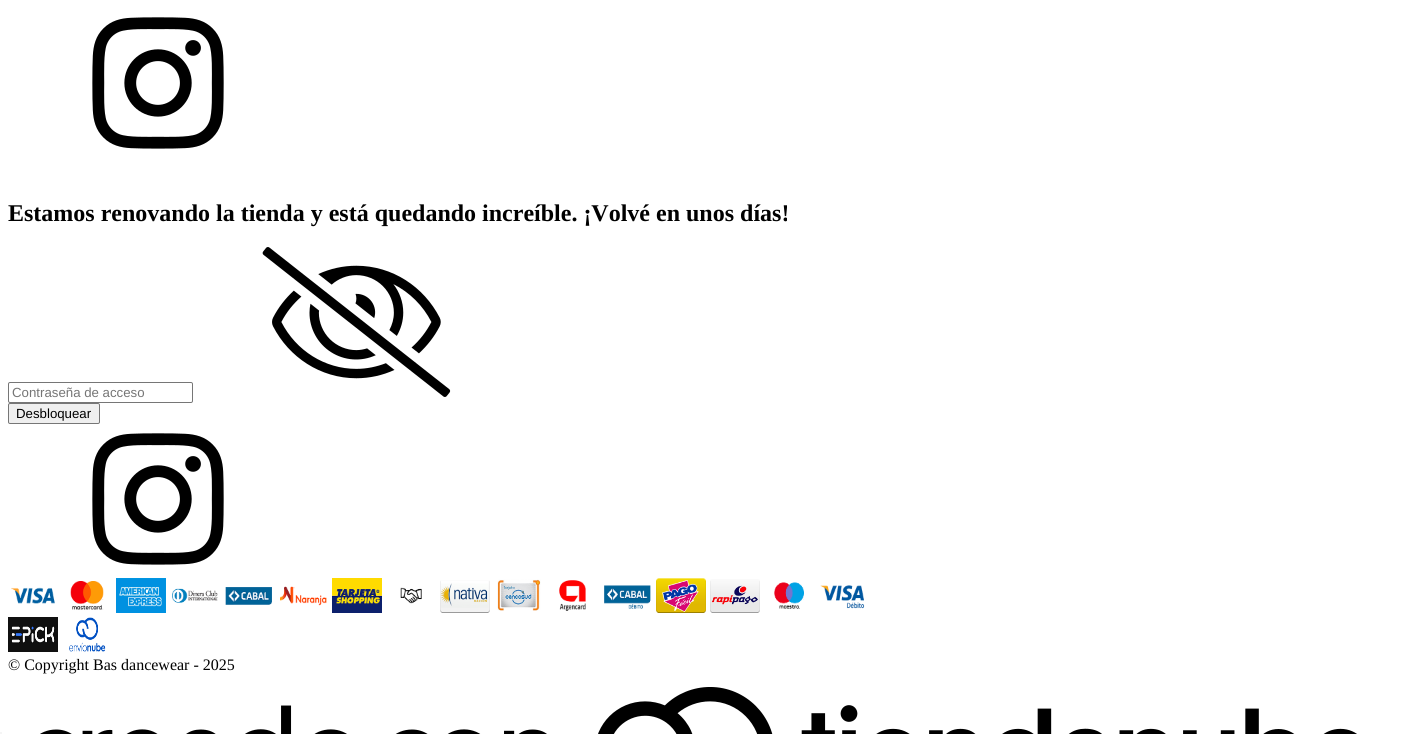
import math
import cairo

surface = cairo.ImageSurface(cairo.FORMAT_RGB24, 1417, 734)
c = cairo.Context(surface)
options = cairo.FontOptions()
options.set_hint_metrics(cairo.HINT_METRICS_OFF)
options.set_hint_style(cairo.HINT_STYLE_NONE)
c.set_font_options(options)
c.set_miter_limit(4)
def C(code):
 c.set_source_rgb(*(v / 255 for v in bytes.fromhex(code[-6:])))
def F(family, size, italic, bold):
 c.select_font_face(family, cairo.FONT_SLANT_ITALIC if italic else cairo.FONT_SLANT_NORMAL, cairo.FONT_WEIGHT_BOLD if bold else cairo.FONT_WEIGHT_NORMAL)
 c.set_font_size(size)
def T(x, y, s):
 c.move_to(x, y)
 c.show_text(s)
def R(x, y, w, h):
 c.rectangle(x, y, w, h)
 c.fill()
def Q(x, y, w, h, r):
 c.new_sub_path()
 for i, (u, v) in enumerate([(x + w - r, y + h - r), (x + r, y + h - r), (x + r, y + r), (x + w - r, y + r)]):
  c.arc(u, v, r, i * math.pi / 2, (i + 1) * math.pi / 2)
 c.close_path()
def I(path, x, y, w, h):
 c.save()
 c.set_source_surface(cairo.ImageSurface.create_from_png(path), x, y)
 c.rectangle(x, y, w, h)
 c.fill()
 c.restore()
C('ffffff')
c.paint()
I('1.png',92,17,132,132)
F('Liberation Serif',24,0,1)
C('000000')
T(8,221,'Estamos renovando la tienda y está quedando increíble. ¡Volvé en unos días!')
Q(8.5,382.5,184,20,1.5)
C('767676')
c.set_line_width(1)
c.stroke()
F('Liberation Sans',13.25,0,0)
C('757575')
T(12,397,'Contraseña de acceso')
I('2.png',262,247,189,150)
C('efefef')
Q(8.5,403.5,91,20,1.5)
c.fill_preserve()
C('767676')
c.stroke()
C('000000')
T(16,418,'Desbloquear')
I('1.png',92,433,132,132)
I('3.png',11,587,44,17)
I('4.png',70,581,34,29)
I('5.png',116,578,50,35)
I('6.png',172,588,46,15)
I('7.png',225,587,47,18)
I('8.png',280,586,47,20)
I('9.png',332,578,50,35)
I('10.png',400,587,22,17)
I('11.png',440,580,50,33)
I('12.png',497,579,44,32)
I('13.png',559,580,27,31)
I('14.png',604,585,47,24)
I('15.png',656,578,50,35)
I('16.png',710,579,50,34)
I('17.png',774,582,30,27)
I('18.png',820,585,45,24)
I('19.png',8,617,50,35)
I('20.png',69,617,37,35)
F('Liberation Serif',16,0,0)
T(8,670,'© Copyright Bas dancewear - 2025')
I('21.png',40,687,1317,47)
C('f5f5f5')
R(0,732,2,2)
surface.write_to_png('o.png')
